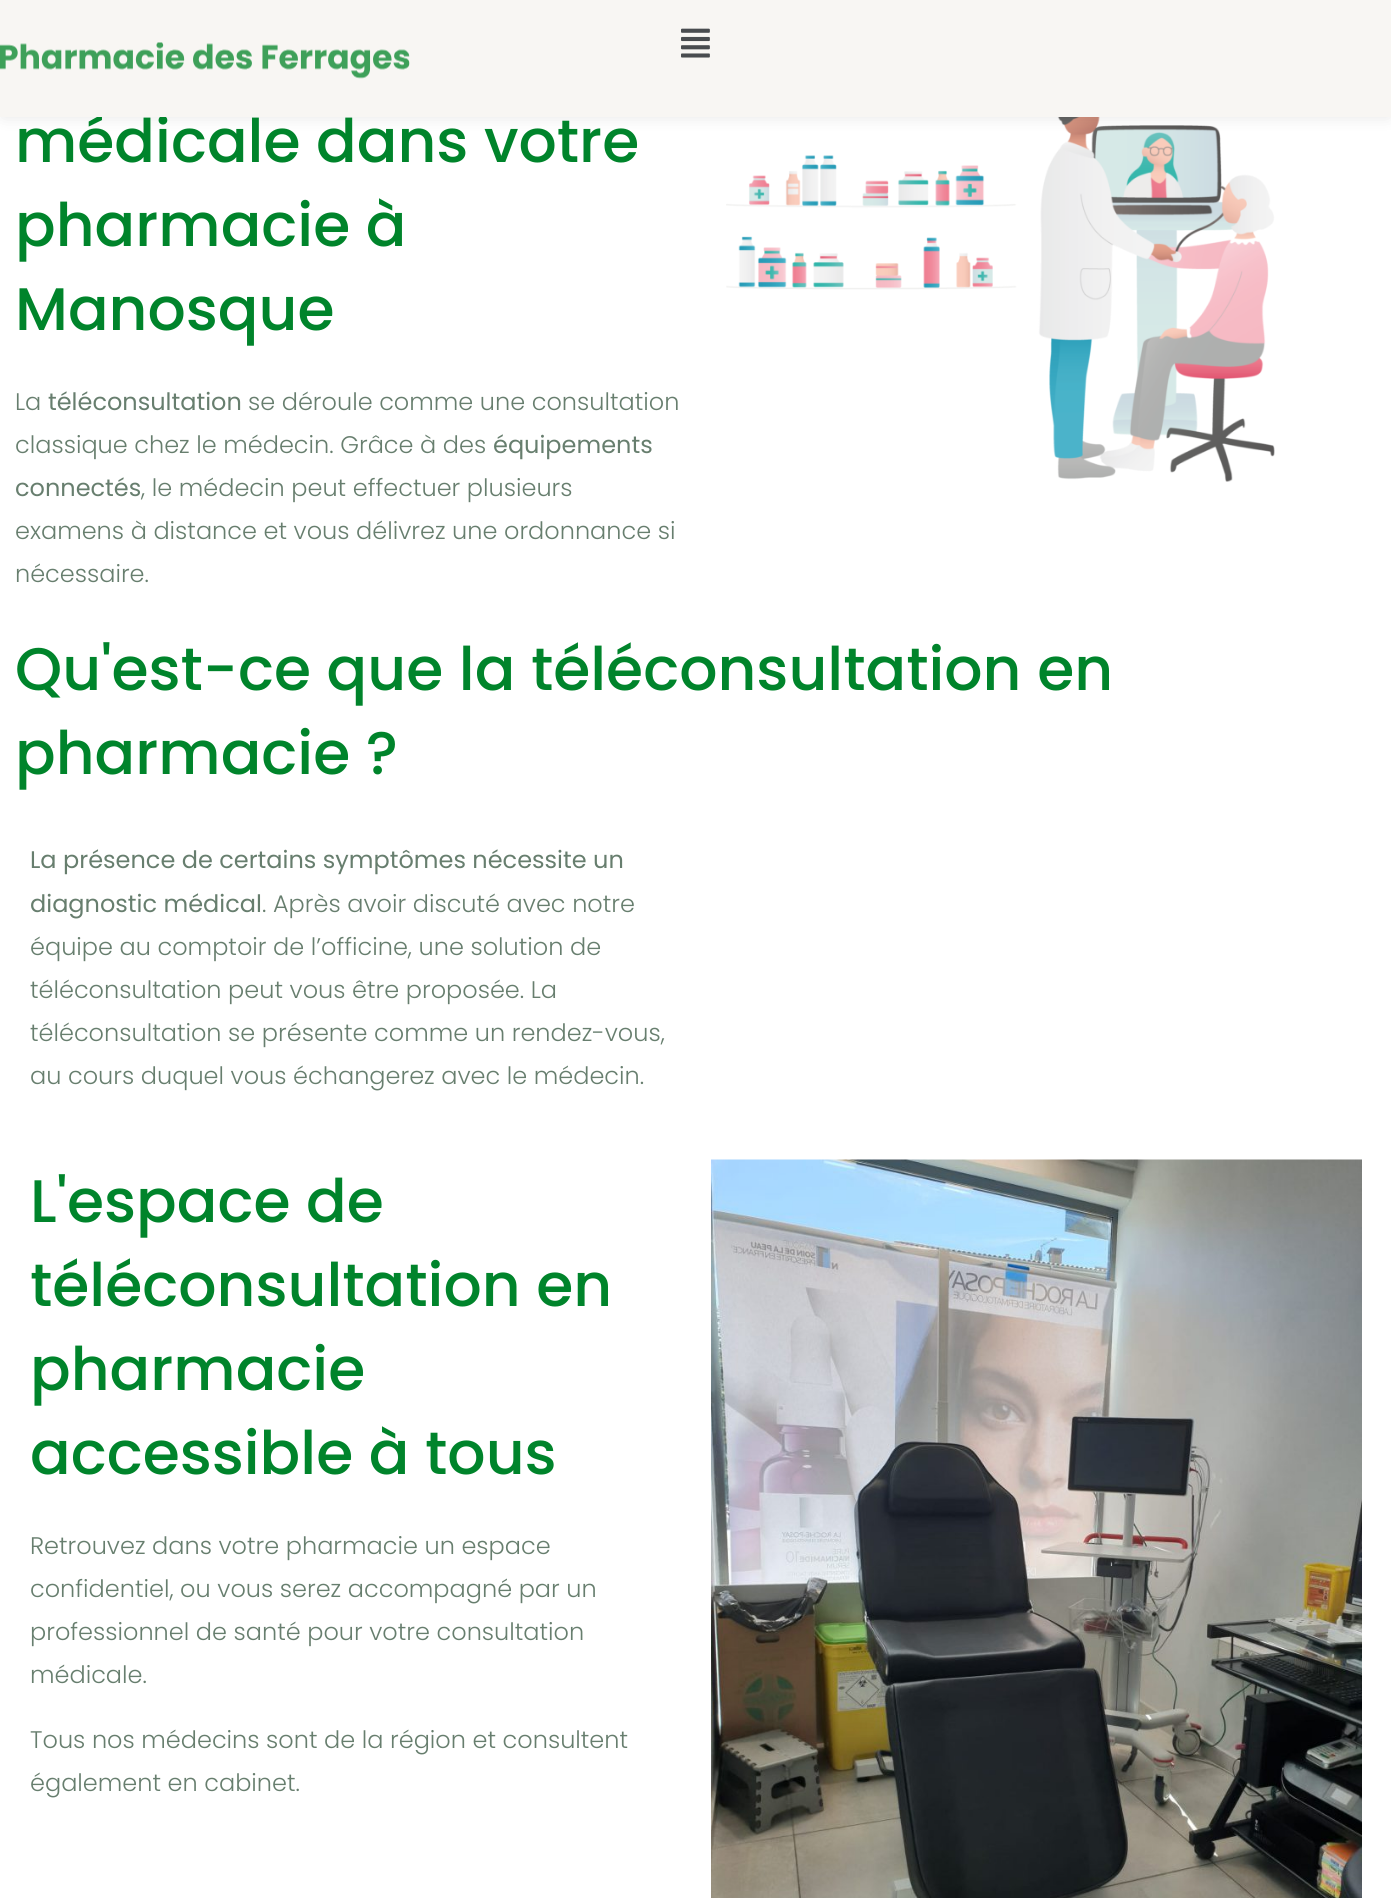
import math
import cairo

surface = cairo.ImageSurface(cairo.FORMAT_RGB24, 1391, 1898)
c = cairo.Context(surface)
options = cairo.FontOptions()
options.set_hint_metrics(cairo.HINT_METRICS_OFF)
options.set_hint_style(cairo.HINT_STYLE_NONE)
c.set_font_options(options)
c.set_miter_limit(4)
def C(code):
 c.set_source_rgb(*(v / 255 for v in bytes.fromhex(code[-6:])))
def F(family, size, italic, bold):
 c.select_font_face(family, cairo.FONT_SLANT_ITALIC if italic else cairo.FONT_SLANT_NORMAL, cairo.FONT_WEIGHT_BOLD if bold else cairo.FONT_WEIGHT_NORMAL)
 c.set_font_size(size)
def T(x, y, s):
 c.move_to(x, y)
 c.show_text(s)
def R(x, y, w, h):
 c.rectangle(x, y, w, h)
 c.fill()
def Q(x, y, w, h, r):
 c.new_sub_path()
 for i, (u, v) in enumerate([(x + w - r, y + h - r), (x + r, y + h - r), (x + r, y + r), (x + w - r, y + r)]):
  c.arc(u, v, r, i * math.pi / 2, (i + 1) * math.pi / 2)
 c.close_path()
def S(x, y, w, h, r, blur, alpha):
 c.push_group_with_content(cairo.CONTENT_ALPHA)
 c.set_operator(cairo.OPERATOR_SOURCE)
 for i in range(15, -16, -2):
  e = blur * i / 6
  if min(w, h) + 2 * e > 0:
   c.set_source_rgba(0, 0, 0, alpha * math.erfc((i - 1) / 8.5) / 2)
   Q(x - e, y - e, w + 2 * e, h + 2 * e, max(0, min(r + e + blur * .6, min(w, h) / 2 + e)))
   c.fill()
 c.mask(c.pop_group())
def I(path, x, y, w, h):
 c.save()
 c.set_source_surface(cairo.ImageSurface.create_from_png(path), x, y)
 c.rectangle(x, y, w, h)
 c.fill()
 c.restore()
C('ffffff')
c.paint()
I('3.png',726,117,549,365)
C('000000')
S(3,6,1386,111,0,7.5,.1)
F('Poppins Medium',60,0,0)
C('00842b')
T(15,162,'médicale dans votre')
C('f8f6f3')
R(0,0,1391,117)
I('1.png',0,42,410,37)
I('2.png',681,28,29,30)
C('00842b')
T(15,246,'pharmacie à')
T(15,330,'Manosque')
F('Poppins Light',24,0,0)
C('677e6e')
T(15,410,'La')
F('Poppins',24,0,0)
T(48,410,'téléconsultation')
F('Poppins Light',24,0,0)
T(248,410,'se déroule comme une consultation')
T(15,453,'classique chez le médecin. Grâce à des')
F('Poppins',24,0,0)
T(493,453,'équipements')
T(15,496,'connectés')
F('Poppins Light',24,0,0)
T(141,496,', le médecin peut effectuer plusieurs')
T(15,539,'examens à distance et vous délivrez une ordonnance si')
T(15,582,'nécessaire.')
F('Poppins Medium',60,0,0)
C('00842b')
T(15,690,'Qu\'est-ce que la téléconsultation en')
T(15,774,'pharmacie ?')
F('Poppins',24,0,0)
C('677e6e')
T(30,868,'La présence de certains symptômes nécessite un')
T(30,912,'diagnostic médical')
F('Poppins Light',24,0,0)
T(262,912,'. Après avoir discuté avec notre')
T(30,955,'équipe au comptoir de l’officine, une solution de')
T(30,998,'téléconsultation peut vous être proposée. La')
T(30,1041,'téléconsultation se présente comme un rendez-vous,')
T(30,1084,'au cours duquel vous échangerez avec le médecin.')
F('Poppins Medium',60,0,0)
C('00842b')
T(30,1222,'L\'espace de')
T(30,1306,'téléconsultation en')
T(30,1390,'pharmacie')
T(30,1474,'accessible à tous')
F('Poppins Light',24,0,0)
C('677e6e')
T(30,1554,'Retrouvez dans votre pharmacie un espace')
T(30,1597,'confidentiel, ou vous serez accompagné par un')
T(30,1640,'professionnel de santé pour votre consultation')
T(30,1683,'médicale.')
T(30,1748,'Tous nos médecins sont de la région et consultent')
T(30,1791,'également en cabinet.')
I('4.png',711,1159,651,739)
surface.write_to_png('o.png')
